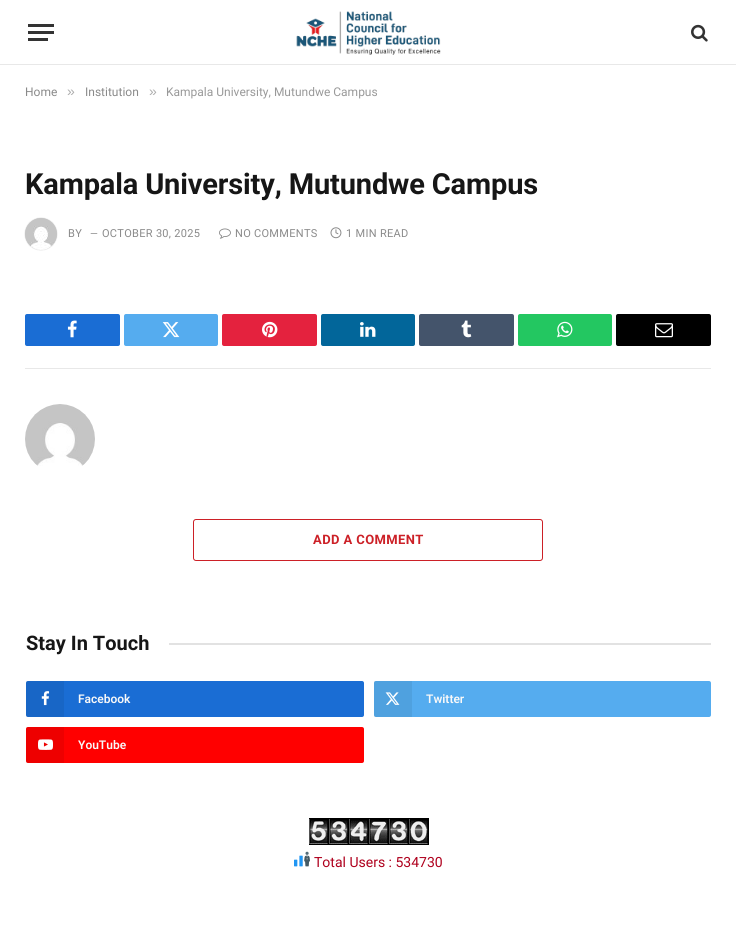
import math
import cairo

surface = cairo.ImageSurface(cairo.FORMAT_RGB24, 736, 942)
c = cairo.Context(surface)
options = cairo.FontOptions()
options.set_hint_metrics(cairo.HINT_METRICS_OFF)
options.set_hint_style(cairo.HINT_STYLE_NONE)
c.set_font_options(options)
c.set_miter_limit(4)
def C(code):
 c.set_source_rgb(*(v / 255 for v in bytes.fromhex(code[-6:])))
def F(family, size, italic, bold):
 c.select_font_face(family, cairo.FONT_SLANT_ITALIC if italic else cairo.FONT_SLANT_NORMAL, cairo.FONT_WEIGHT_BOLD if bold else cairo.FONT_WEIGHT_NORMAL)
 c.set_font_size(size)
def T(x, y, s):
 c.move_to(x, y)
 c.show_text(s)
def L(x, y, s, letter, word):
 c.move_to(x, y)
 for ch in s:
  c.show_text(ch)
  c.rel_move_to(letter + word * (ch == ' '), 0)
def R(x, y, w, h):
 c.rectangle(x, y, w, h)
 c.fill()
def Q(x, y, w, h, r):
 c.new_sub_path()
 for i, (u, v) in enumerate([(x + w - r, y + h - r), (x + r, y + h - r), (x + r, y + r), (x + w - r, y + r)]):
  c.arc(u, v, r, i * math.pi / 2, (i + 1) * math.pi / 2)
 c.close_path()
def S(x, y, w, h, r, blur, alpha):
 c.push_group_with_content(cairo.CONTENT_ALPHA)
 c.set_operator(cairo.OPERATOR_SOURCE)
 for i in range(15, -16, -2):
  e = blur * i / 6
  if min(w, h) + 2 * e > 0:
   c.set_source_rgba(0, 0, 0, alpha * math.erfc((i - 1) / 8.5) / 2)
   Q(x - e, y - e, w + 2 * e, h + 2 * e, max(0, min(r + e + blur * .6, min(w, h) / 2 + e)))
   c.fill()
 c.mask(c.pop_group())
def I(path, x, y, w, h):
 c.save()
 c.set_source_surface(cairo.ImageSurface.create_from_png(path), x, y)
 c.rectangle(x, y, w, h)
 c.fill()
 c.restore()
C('ffffff')
c.paint()
C('e8e8e8')
R(0,64,736,1)
C('333333')
R(28,38,20,3)
R(28,24,26,3)
R(28,31,26,3)
I('1.png',296,11,145,44)
I('2.png',691,24,17,18)
F('Roboto',12,0,0)
C('8a8a8a')
T(25,96,'Home')
F('Liberation Sans',14,0,0)
C('adadad')
T(67,96,'»')
F('Roboto',12,0,0)
C('8a8a8a')
T(85,96,'Institution')
F('Liberation Sans',14,0,0)
C('adadad')
T(149,96,'»')
F('Roboto',12,0,0)
C('999999')
T(166,96,'Kampala University, Mutundwe Campus')
F('Roboto',29,0,1)
C('161616')
L(25,194,'Kampala University, Mutundwe Campus',-.15,0)
C('000000')
S(25,218,32,32,16,.5,.2)
I('3.png',25,218,32,32)
F('Roboto',11,0,0)
C('8a8a8a')
L(68,237,'BY',.3,0)
F('Roboto',10,0,0)
T(90,237,'—')
F('Roboto',11,0,0)
L(102,237,'OCTOBER 30, 2025',.3,0)
I('4.png',219,228,12,11)
L(235,237,'NO COMMENTS',.3,0)
I('5.png',330,227,12,12)
L(346,237,'1 MIN READ',.3,0)
C('1a6dd4')
Q(25,314,95,32,2)
c.fill()
I('6.png',67,320,10,18)
C('55acef')
Q(124,314,94,32,2)
c.fill()
I('7.png',162,322,18,16)
C('e4223e')
Q(222,314,95,32,2)
c.fill()
I('8.png',262,321,16,17)
C('02669a')
Q(321,314,94,32,2)
c.fill()
I('9.png',360,322,16,15)
C('44546b')
Q(419,314,95,32,2)
c.fill()
I('10.png',461,320,11,18)
C('23c761')
Q(518,314,94,32,2)
c.fill()
I('11.png',557,321,16,17)
C('000000')
Q(616,314,95,32,2)
c.fill()
I('12.png',655,323,18,15)
C('e8e8e8')
R(25,368,686,1)
I('13.png',25,404,70,62)
Q(193.5,519.5,349,41,2.5)
C('cc2027')
c.set_line_width(1)
c.stroke()
F('Roboto',13,0,1)
L(313,544,'ADD A COMMENT',.4,0)
F('Roboto',20,0,1)
C('161616')
T(26,650,'Stay In Touch')
C('e2e2e2')
R(169,643,542,2)
C('1a6dd4')
Q(26,681,338,36,2)
c.fill()
c.set_source_rgba(0,0,0,0.07)
R(26,681,38,36)
I('14.png',41,691,9,15)
F('Roboto SemiBold',12,0,0)
C('f8f8f8')
T(78,703,'Facebook')
C('55acef')
Q(374,681,337,36,2)
c.fill()
c.set_source_rgba(0,0,0,0.07)
R(374,681,38,36)
I('15.png',385,692,15,13)
C('f8f8f8')
T(426,703,'Twitter')
C('ff0000')
Q(26,727,338,36,2)
c.fill()
c.set_source_rgba(0,0,0,0.07)
R(26,727,38,36)
I('16.png',38,739,15,11)
C('f8f8f8')
T(78,749,'YouTube')
I('17.png',309,818,20,27)
I('18.png',329,818,20,27)
I('19.png',349,818,20,27)
I('20.png',369,818,20,27)
I('18.png',389,818,20,27)
I('21.png',409,818,20,27)
I('22.png',294,851,16,16)
F('Roboto',14,0,0)
C('af001d')
T(314,867,'Total Users : 534730')
surface.write_to_png('o.png')
